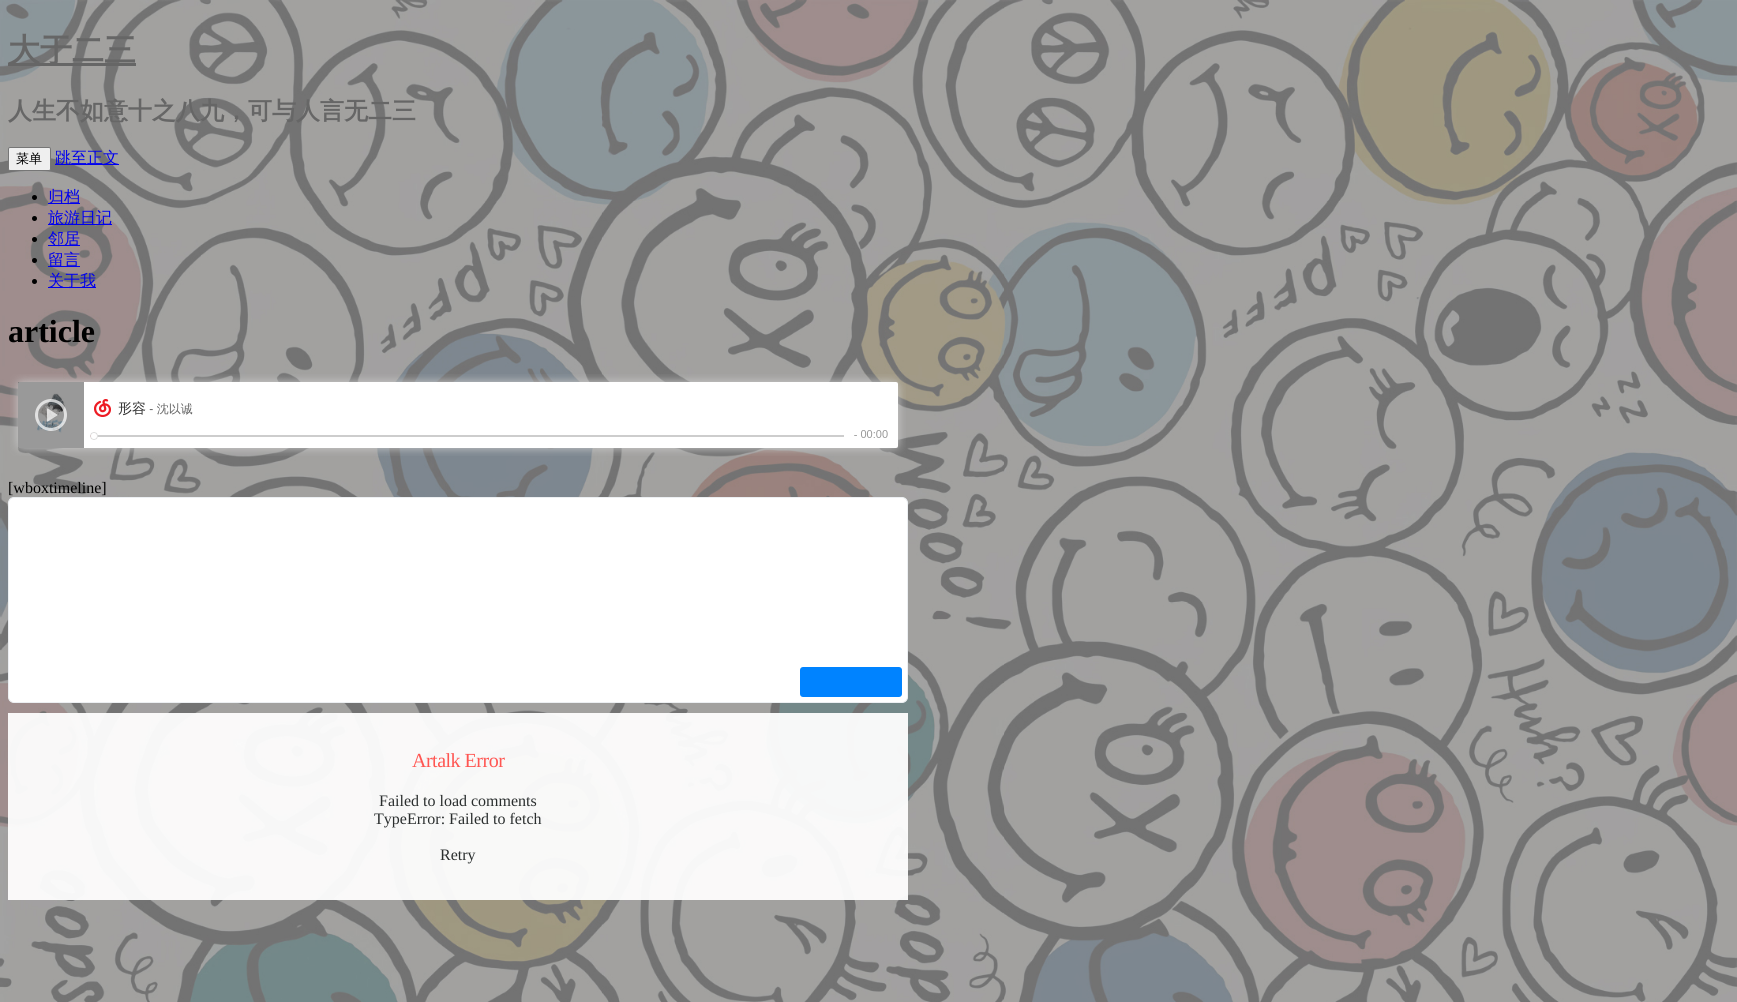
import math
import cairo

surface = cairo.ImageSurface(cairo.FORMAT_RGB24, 1737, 1002)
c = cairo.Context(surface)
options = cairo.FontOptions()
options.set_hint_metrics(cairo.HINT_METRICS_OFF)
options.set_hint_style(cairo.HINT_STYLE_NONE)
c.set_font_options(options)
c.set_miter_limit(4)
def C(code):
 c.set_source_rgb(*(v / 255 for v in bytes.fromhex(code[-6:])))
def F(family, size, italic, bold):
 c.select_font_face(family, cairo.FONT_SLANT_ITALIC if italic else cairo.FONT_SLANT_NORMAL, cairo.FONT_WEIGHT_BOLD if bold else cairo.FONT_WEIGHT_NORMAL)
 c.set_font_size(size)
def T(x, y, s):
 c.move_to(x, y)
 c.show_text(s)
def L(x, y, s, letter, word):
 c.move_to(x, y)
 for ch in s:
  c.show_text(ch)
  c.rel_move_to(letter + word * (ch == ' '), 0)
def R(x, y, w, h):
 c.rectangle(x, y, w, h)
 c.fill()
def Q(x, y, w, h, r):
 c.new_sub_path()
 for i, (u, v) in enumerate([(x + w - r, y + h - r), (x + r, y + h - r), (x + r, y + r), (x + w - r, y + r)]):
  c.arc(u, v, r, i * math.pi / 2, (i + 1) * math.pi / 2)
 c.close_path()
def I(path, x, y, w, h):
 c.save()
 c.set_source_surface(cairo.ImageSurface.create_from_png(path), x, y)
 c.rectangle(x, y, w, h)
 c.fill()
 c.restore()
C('ffffff')
c.paint()
I('1.png',0,0,1737,1002)
C('666666')
R(8,63,128,3)
F('WenQuanYi Zen Hei',32,0,1)
T(8,61,'大于二三')
F('WenQuanYi Zen Hei',24,0,1)
T(8,119,'人生不如意十之八九，可与人言无二三')
C('efefef')
Q(8.5,147.5,42,23,1.5)
c.fill_preserve()
C('767676')
c.set_line_width(1)
c.stroke()
F('WenQuanYi Zen Hei Medium',13,0,0)
C('000000')
T(16,163,'菜单')
C('0000ee')
R(55,164,64,1)
F('WenQuanYi Zen Hei Medium',16,0,0)
T(55,163,'跳至正文')
C('000000')
c.new_path()
c.arc(34.5,197.5,2.5,0,2 * math.pi)
c.fill()
C('0000ee')
R(48,203,32,1)
T(48,202,'归档')
C('000000')
c.new_path()
c.arc(34.5,218.5,2.5,0,2 * math.pi)
c.fill()
C('0000ee')
R(48,224,64,1)
T(48,223,'旅游日记')
C('000000')
c.new_path()
c.arc(34.5,239.5,2.5,0,2 * math.pi)
c.fill()
C('0000ee')
R(48,245,32,1)
T(48,244,'邻居')
C('000000')
c.new_path()
c.arc(34.5,260.5,2.5,0,2 * math.pi)
c.fill()
C('0000ee')
R(48,266,32,1)
T(48,265,'留言')
C('000000')
c.new_path()
c.arc(34.5,281.5,2.5,0,2 * math.pi)
c.fill()
C('0000ee')
R(48,287,48,1)
T(48,286,'关于我')
F('Liberation Serif',32,0,1)
C('000000')
T(8,342,'article')
I('2.png',10,374,896,82)
F('Liberation Serif',16,0,0)
T(8,493,'[wboxtimeline]')
C('ffffff')
Q(8.5,497.5,899,205,5.5)
c.fill_preserve()
C('eceff2')
c.stroke()
C('0083ff')
Q(800,667,102,30,3)
c.fill()
c.set_source_rgba(1,1,1,0.94)
R(8,713,900,187)
F('Liberation Serif',20,0,0)
C('ff5652')
L(412,767,'Artalk Error',-.5,0)
F('Liberation Serif',16,0,0)
C('2a2e2e')
T(379,806,'Failed to load comments')
T(374,824,'TypeError: Failed to fetch')
T(440,860,'Retry')
surface.write_to_png('o.png')
